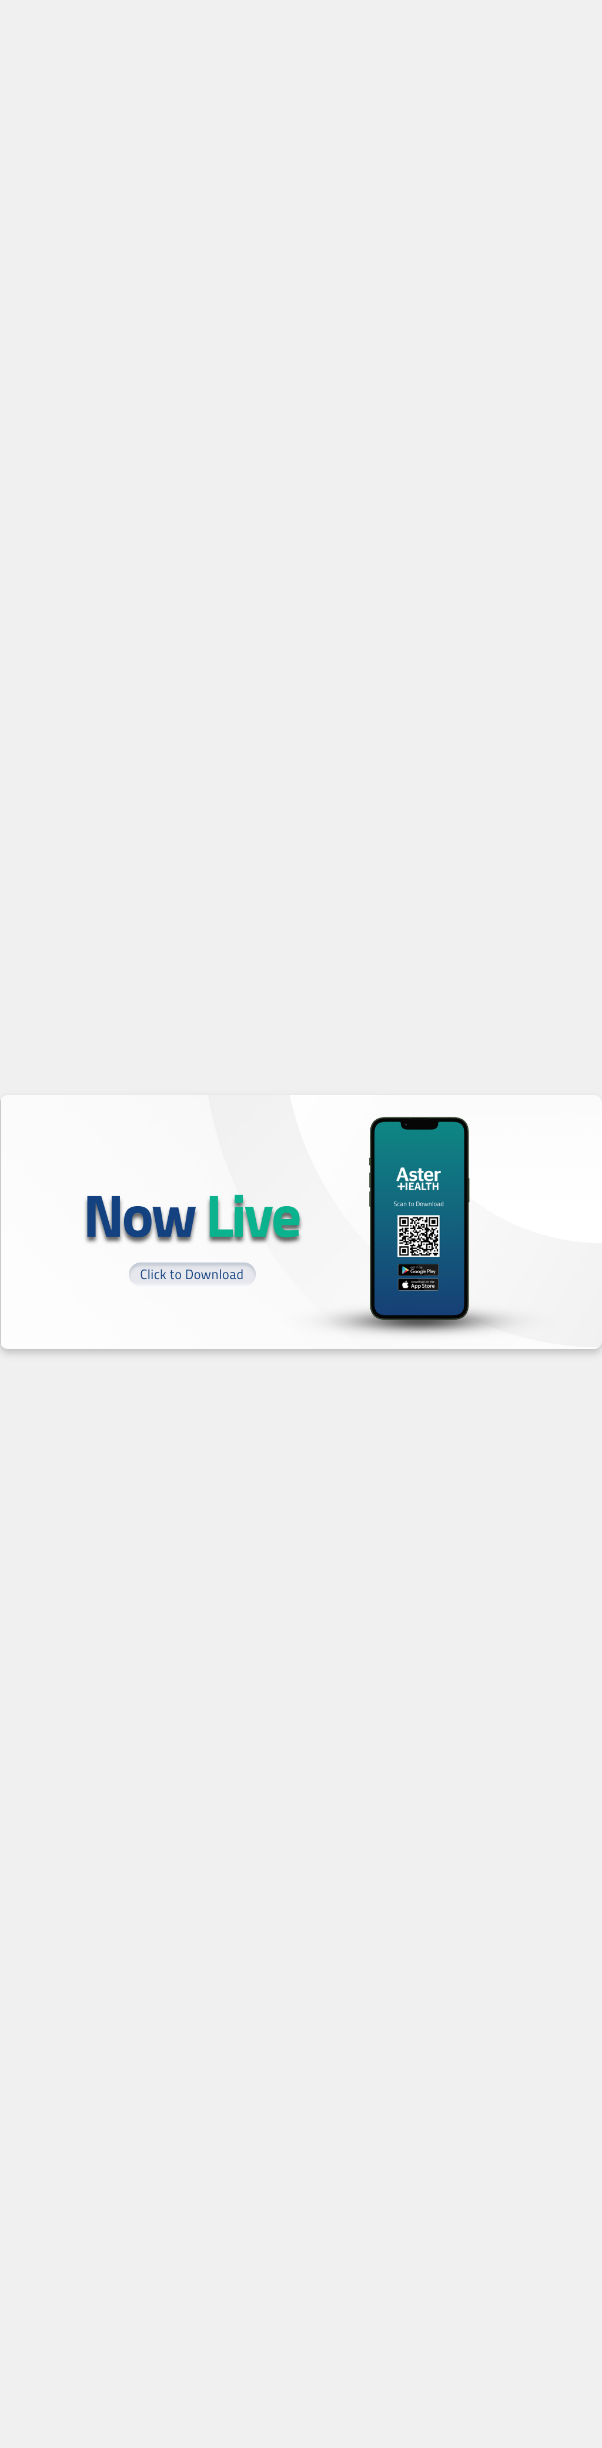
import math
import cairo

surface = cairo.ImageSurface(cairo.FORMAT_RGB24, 602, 2448)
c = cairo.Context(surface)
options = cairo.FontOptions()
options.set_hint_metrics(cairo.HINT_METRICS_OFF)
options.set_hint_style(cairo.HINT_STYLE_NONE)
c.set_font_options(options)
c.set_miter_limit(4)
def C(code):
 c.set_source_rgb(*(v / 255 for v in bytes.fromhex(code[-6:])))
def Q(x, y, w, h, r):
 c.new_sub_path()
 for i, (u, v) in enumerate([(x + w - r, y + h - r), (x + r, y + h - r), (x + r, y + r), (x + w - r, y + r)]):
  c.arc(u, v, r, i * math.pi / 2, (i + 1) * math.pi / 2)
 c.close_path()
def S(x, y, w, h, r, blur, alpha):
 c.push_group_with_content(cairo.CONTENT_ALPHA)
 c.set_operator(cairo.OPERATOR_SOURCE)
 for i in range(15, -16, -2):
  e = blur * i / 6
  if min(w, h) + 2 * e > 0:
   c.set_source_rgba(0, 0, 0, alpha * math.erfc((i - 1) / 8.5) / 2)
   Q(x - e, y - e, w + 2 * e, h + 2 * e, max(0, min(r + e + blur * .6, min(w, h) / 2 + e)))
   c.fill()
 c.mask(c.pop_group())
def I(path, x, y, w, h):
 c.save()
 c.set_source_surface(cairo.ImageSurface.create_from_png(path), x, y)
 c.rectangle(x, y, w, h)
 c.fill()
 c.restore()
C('f0f0f0')
c.paint()
C('000000')
S(0,1099,602,254,8,4,.2)
I('1.png',0,1095,602,254)
surface.write_to_png('o.png')
